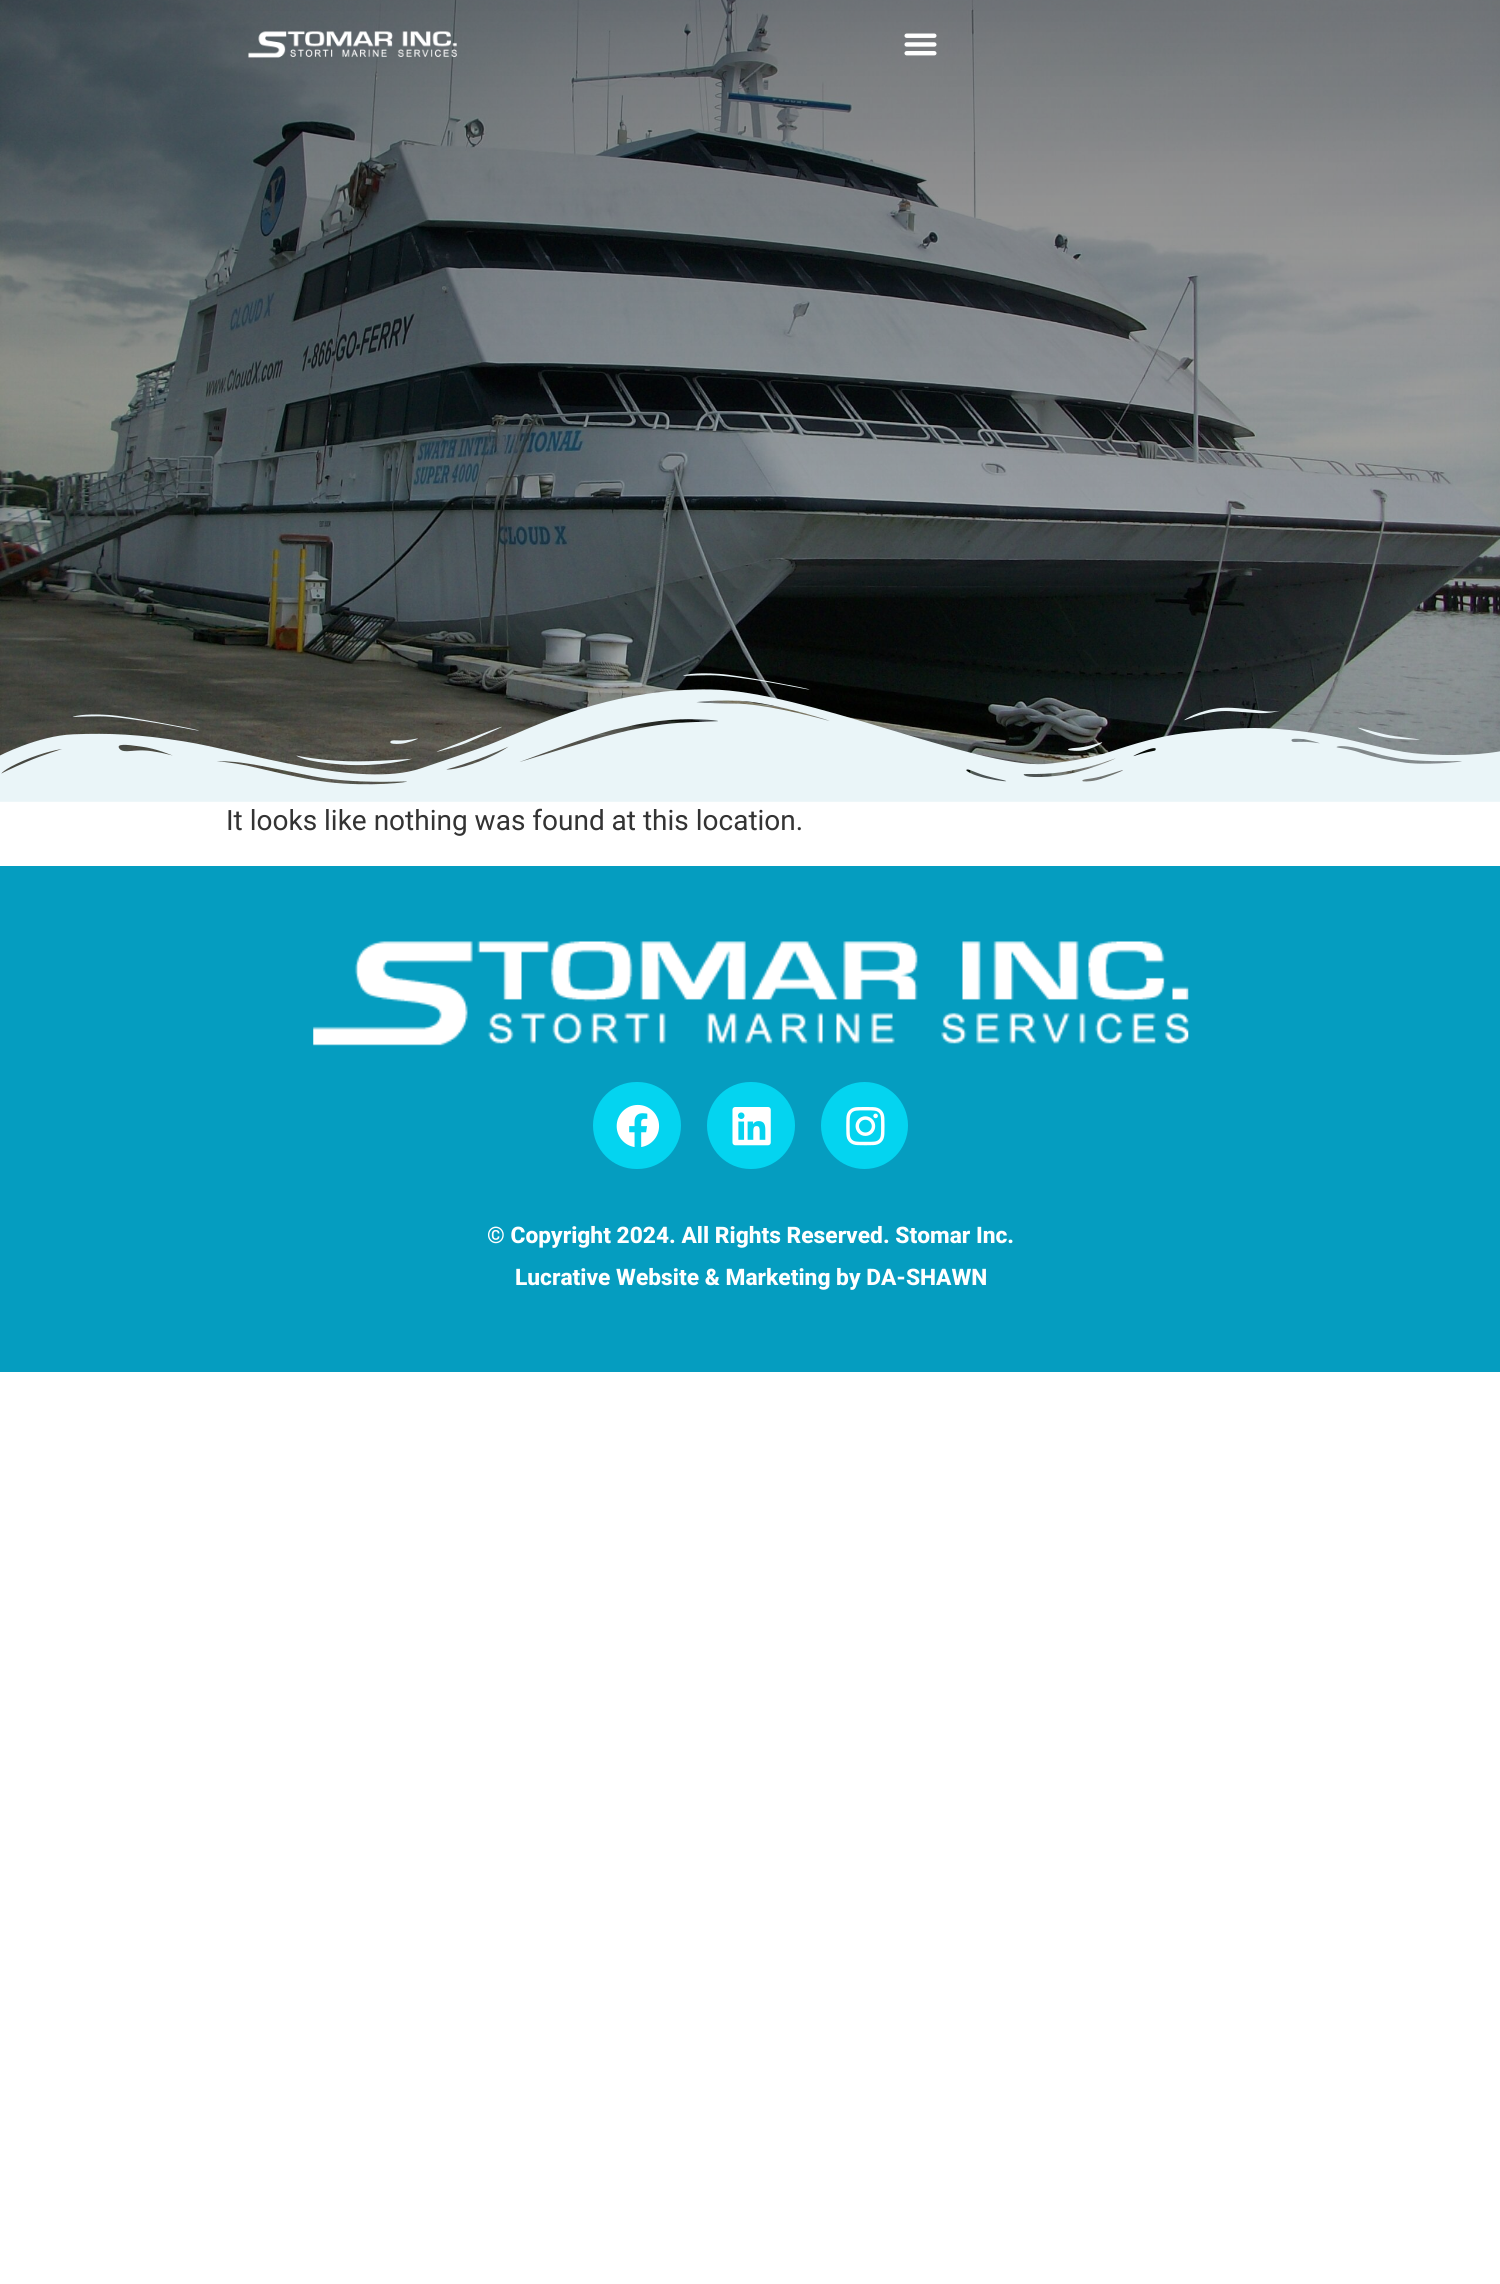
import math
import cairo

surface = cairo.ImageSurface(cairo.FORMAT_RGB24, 1500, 2284)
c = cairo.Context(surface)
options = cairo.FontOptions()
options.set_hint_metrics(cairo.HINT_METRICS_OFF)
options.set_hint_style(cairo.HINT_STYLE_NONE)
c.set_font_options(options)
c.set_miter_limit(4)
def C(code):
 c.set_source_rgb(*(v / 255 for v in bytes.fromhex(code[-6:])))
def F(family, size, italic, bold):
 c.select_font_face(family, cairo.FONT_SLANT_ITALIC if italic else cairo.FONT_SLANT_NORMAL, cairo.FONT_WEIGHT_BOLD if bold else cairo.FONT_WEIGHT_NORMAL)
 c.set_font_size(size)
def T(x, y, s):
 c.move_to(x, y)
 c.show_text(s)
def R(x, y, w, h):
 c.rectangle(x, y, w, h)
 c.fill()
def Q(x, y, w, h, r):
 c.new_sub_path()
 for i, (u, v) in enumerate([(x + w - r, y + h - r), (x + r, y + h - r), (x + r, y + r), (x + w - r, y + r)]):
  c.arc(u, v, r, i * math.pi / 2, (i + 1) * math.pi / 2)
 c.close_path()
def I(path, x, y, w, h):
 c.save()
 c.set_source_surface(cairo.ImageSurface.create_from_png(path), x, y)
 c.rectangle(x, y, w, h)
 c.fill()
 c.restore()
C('ffffff')
c.paint()
I('1.png',0,0,1500,785)
gradient = cairo.LinearGradient(751,0,751,800)
gradient.add_color_stop_rgba(0,0,0,0,.5)
gradient.add_color_stop_rgba(1,0,0,0,.21)
c.set_source(gradient)
R(0,0,1500,785)
I('2.png',248,31,209,27)
I('3.png',904,33,33,23)
I('4.png',0,673,1500,129)
F('Roboto',28,0,0)
C('333333')
T(226,830,'It looks like nothing was found at this location.')
C('059dc0')
R(0,866,1500,506)
I('5.png',313,941,876,105)
C('04d4f0')
Q(593,1082,88,87,43.5)
c.fill()
I('6.png',616,1104,44,43)
Q(707,1082,88,87,43.5)
c.fill()
I('7.png',732,1107,39,39)
c.arc(864.5,1125.5,43.5,0,2 * math.pi)
c.fill()
I('8.png',846,1107,39,39)
F('Roboto ExtraBold',22.75,0,0)
C('ffffff')
T(487,1243,'© Copyright 2024. All Rights Reserved. Stomar Inc.')
T(515,1285,'Lucrative Website & Marketing by DA-SHAWN')
surface.write_to_png('o.png')
